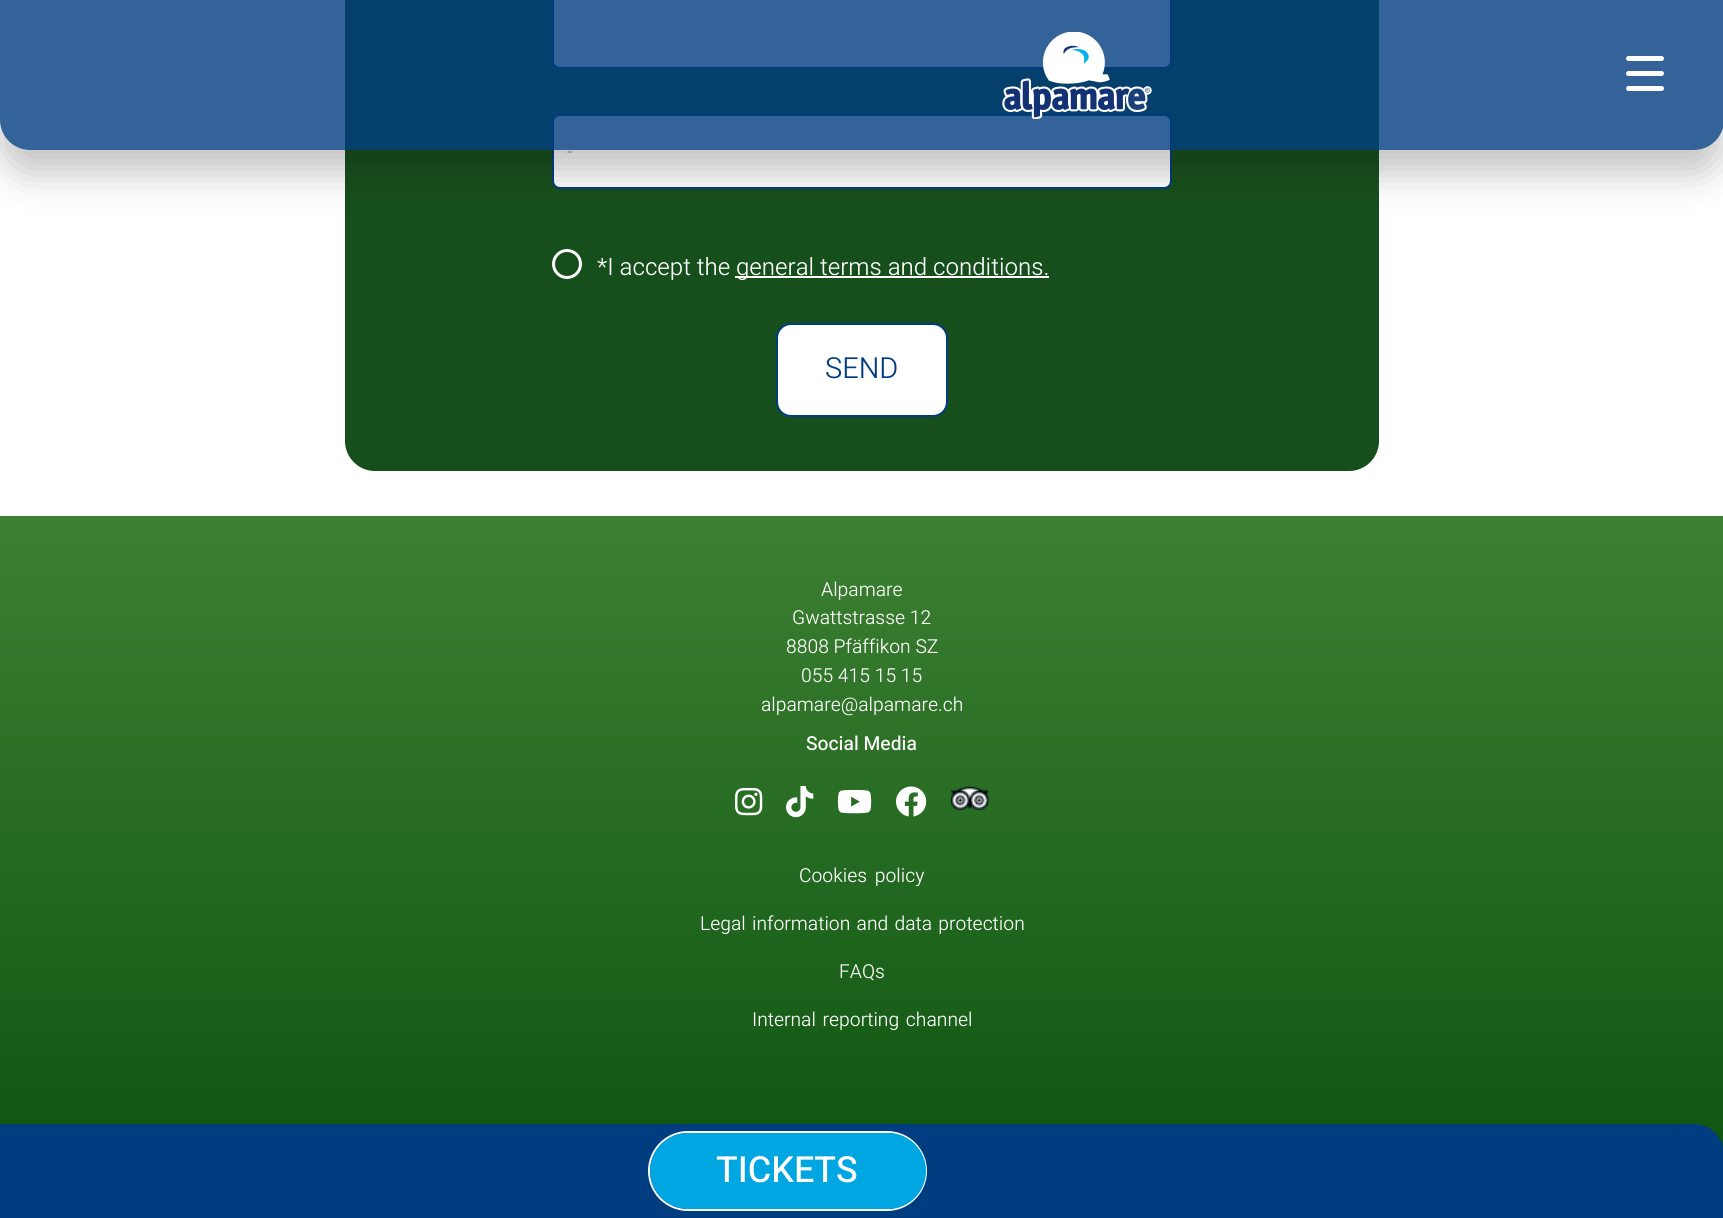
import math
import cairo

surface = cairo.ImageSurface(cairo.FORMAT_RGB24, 1723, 1218)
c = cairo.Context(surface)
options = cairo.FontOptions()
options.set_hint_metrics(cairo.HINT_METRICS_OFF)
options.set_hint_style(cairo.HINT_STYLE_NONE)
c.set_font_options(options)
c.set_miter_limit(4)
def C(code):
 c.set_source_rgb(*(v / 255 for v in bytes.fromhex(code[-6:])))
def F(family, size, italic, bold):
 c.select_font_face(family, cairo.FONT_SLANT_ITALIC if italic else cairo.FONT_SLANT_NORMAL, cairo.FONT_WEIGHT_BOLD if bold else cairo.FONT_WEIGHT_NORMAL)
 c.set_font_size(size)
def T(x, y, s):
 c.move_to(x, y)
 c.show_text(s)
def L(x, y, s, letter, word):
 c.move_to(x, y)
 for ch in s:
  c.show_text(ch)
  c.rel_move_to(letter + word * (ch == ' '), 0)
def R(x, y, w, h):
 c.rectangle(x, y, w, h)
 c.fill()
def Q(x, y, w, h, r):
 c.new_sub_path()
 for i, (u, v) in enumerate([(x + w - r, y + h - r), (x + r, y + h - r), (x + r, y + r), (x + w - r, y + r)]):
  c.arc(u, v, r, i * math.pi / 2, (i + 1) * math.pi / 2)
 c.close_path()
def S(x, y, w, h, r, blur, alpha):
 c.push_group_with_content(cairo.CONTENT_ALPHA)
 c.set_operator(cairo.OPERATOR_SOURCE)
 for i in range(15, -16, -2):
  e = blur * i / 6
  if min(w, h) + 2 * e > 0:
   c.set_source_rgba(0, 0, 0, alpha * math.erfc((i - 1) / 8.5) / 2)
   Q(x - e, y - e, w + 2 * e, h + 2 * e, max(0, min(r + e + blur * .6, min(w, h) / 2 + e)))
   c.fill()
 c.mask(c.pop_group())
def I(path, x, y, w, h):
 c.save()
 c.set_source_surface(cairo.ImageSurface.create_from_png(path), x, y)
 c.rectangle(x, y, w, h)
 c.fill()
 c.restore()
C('ffffff')
c.paint()
C('164f1b')
Q(345,-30,1034,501,30)
c.fill()
C('ffffff')
Q(553,-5,618,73,7)
c.fill_preserve()
C('003d80')
c.stroke()
C('ffffff')
Q(553,115,618,73,7)
c.fill_preserve()
C('003d80')
c.stroke()
F('Heebo Light',19.25,0,0)
C('809ec0')
T(567,158,'-')
c.new_path()
c.arc(567,264,13.5,0,2 * math.pi)
C('ffffff')
c.set_line_width(3)
c.stroke()
F('Heebo Light',24,0,0)
T(597,275,'*I accept the')
R(735,276,314,2)
T(736,275,'general terms and conditions.')
Q(777,324,170,92,14)
c.fill_preserve()
C('003d80')
c.set_line_width(2)
c.stroke()
F('Heebo Light',29,0,0)
T(825,378,'SEND')
gradient = cairo.LinearGradient(862,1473,862,516)
gradient.add_color_stop_rgba(.22,0.031,0.31,0.047,1)
gradient.add_color_stop_rgba(1,0.239,0.502,0.2,1)
c.set_source(gradient)
R(0,516,1723,631)
F('Heebo Light',19.25,0,0)
C('ffffff')
T(821,596,'Alpamare')
T(792,624,'Gwattstrasse 12')
T(786,653,'8808 Pfäffikon SZ')
T(801,682,'055 415 15 15')
T(761,711,'alpamare@alpamare.ch')
F('Heebo Medium',19.25,0,0)
T(806,750,'Social Media')
I('1.png',735,787,28,29)
I('2.png',786,786,28,32)
I('3.png',837,789,35,25)
I('4.png',896,786,31,31)
I('5.png',951,786,38,25)
F('Heebo Light',19.25,0,0)
L(799,882,'Cookies policy',0,3)
L(700,930,'Legal information and data protection',0,1.5)
T(839,978,'FAQs')
L(752,1026,'Internal reporting channel',0,2)
c.save()
c.set_fill_rule(cairo.FILL_RULE_EVEN_ODD)
c.new_path()
c.move_to(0,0)
c.line_to(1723,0)
c.line_to(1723,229)
c.line_to(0,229)
c.close_path()
c.move_to(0,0)
c.line_to(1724,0)
c.line_to(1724,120)
c.curve_to(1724,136.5,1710.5,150,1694,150)
c.line_to(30,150)
c.curve_to(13.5,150,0,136.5,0,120)
c.close_path()
c.clip()
C('151515')
S(0,24,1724,150,30,18,.25)
c.restore()
c.set_source_rgba(0,0.239,0.502,0.8)
c.new_path()
c.move_to(0,0)
c.line_to(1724,0)
c.line_to(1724,120)
c.curve_to(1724,136.5,1710.5,150,1694,150)
c.line_to(30,150)
c.curve_to(13.5,150,0,136.5,0,120)
c.close_path()
c.fill()
I('6.png',1002,32,150,87)
C('ffffff')
Q(1626,71,38,5,2.5)
c.fill()
Q(1626,56,38,5,2.5)
c.fill()
Q(1626,86,38,5,2.5)
c.fill()
C('003d80')
c.new_path()
c.move_to(0,1124)
c.line_to(1694,1124)
c.curve_to(1710.5,1124,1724,1137.5,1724,1154)
c.line_to(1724,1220)
c.line_to(-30,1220)
c.line_to(-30,1154)
c.curve_to(-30,1137.5,-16.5,1124,0,1124)
c.close_path()
c.fill()
Q(649,1132,277,78,39)
C('ffffff')
c.stroke()
C('00a6e1')
Q(650,1133,276,76,38)
c.fill()
F('Heebo Medium',36,0,0)
C('ffffff')
T(716,1182,'TICKETS')
surface.write_to_png('o.png')
